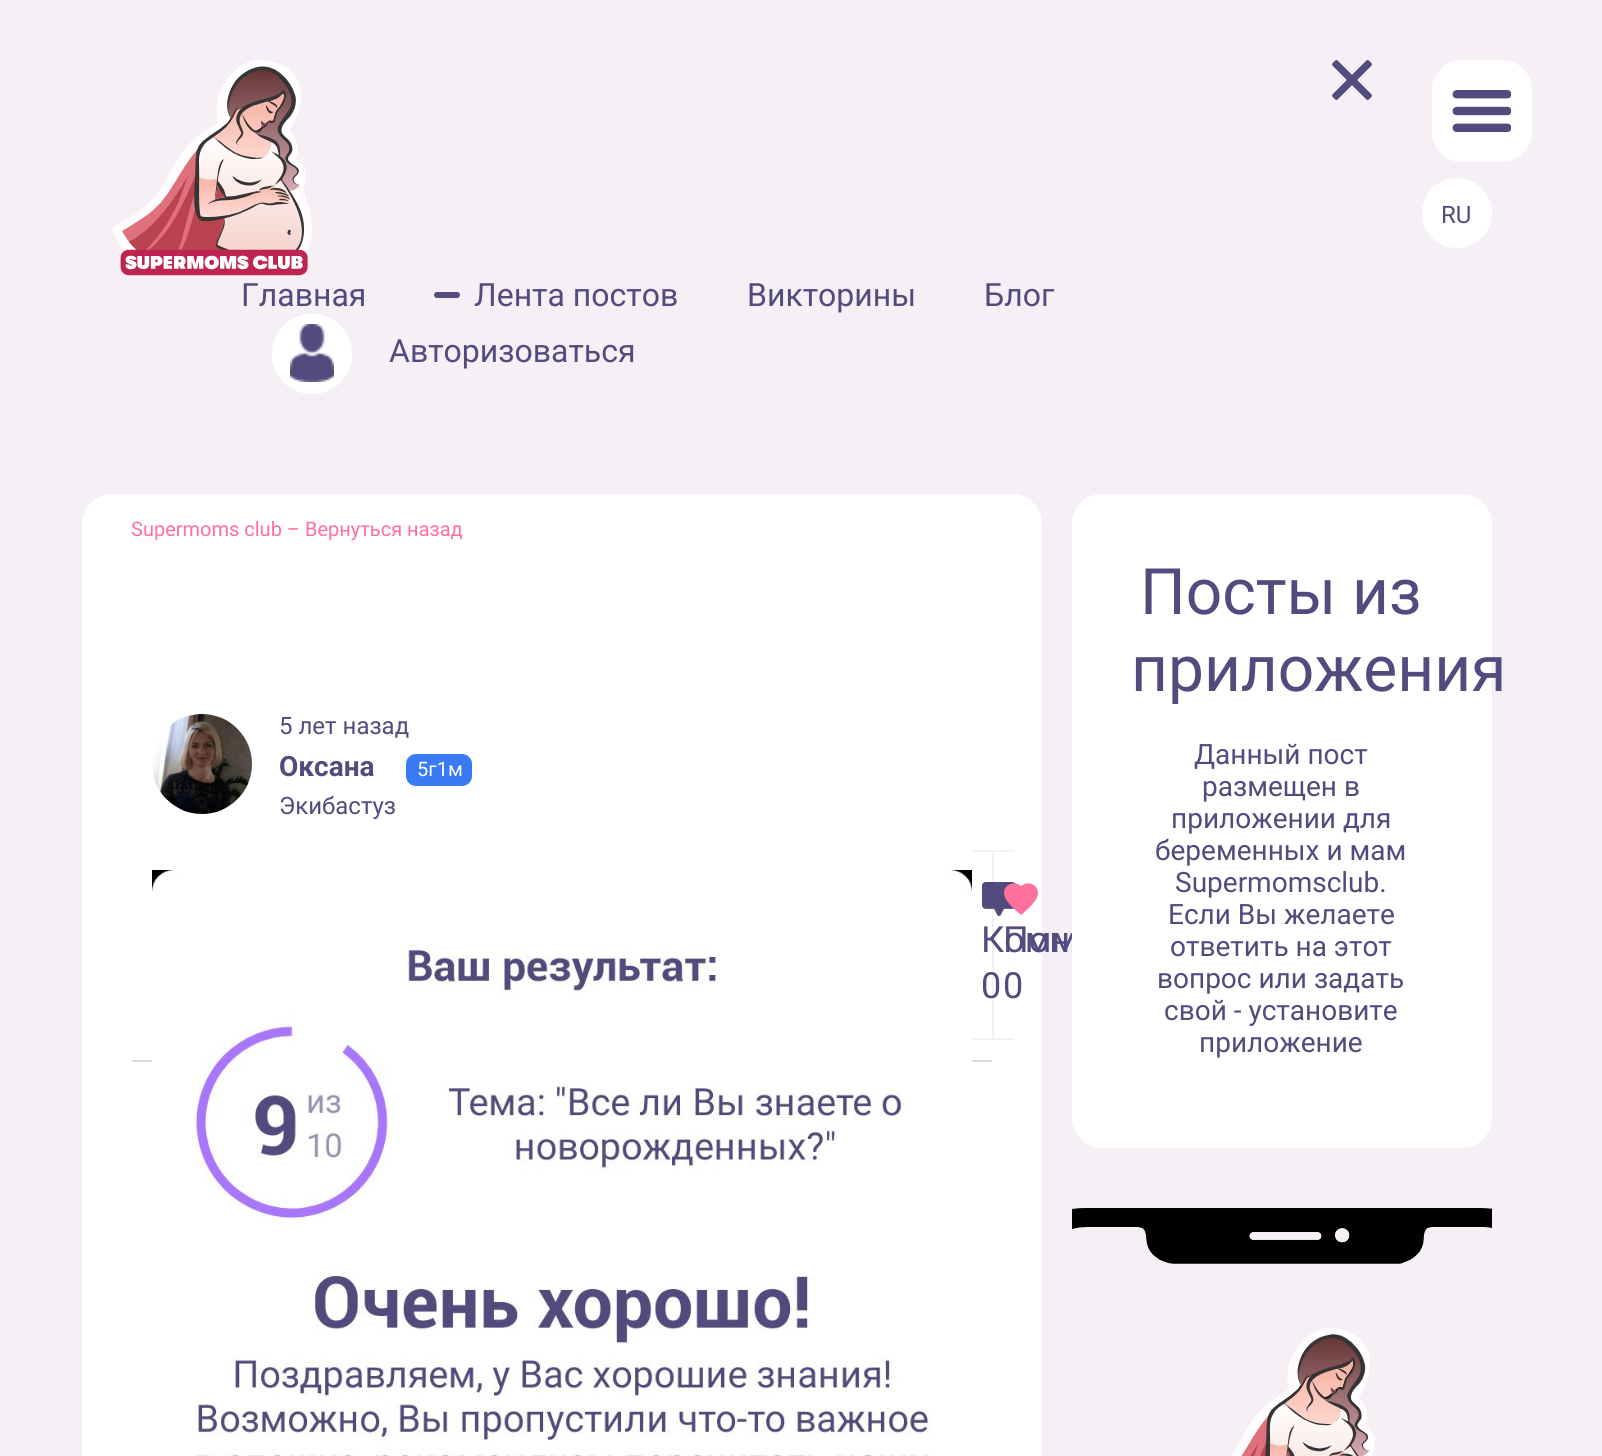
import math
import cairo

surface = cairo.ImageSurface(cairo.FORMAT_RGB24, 1602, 1456)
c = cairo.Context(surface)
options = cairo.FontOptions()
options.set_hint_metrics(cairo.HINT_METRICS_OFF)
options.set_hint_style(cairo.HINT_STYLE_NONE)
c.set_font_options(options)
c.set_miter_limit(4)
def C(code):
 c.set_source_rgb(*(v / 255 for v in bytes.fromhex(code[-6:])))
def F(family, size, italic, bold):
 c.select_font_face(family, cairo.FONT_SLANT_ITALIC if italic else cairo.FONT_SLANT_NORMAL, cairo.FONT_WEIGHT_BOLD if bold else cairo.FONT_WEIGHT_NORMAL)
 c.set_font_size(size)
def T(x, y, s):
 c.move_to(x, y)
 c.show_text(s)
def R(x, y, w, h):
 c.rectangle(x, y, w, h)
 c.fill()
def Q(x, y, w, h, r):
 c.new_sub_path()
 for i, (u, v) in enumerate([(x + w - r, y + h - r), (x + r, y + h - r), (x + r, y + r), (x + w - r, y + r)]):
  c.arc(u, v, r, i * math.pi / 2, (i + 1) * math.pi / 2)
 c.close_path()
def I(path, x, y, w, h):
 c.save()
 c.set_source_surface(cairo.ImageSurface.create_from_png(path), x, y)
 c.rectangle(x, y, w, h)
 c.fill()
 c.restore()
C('f6eff6')
c.paint()
C('ffffff')
Q(1432,60,100,102,30)
c.fill()
I('1.png',1452,90,59,42)
c.arc(1457,213,35,0,2 * math.pi)
c.fill()
F('Roboto',24,0,0)
C('514b7e')
T(1441,223,'RU')
I('2.png',112,60,200,216)
I('3.png',1332,60,40,40)
F('Roboto',32,0,0)
T(241,306,'Главная')
T(474,306,'Лента постов')
Q(434,292,26,6,3)
c.fill()
T(747,306,'Викторины')
T(984,306,'Блог')
C('ffffff')
c.new_path()
c.arc(312,354,40,0,2 * math.pi)
c.fill()
I('4.png',290,324,44,58)
c.arc(312,354,38,0,2 * math.pi)
c.set_line_width(4)
c.stroke()
C('514b7e')
T(389,362,'Авторизоваться')
C('ffffff')
Q(82,494,960,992,30)
c.fill()
F('Roboto',20,0,0)
C('ff709b')
T(131,536,'Supermoms club – Вернуться назад')
I('5.png',152,714,100,100)
F('Roboto',24,0,0)
C('514b7e')
T(279,734,'5 лет назад')
F('Roboto',28,0,1)
T(279,776,'Оксана')
C('3a7af5')
Q(406,754,66,32,10)
c.fill()
F('Roboto',20,0,0)
C('ffffff')
T(417,776,'5г1м')
F('Roboto',24,0,0)
C('514b7e')
T(279,814,'Экибастуз')
C('dadada')
R(132,1060,860,2)
I('6.png',152,870,820,586)
C('f6eff6')
R(972,850,42,2)
R(992,850,2,190)
R(972,1038,42,2)
I('7.png',982,882,34,34)
F('Roboto',36,0,0)
C('514b7e')
T(981,952,'Комм')
T(981,998,'0')
I('8.png',1004,883,34,32)
T(1003,952,'Пон')
T(1003,998,'0')
C('ffffff')
Q(1072,494,420,654,30)
c.fill()
F('Roboto',64,0,0)
C('514b7e')
T(1140,614,'Посты из')
T(1131,691,'приложения')
F('Roboto',28,0,0)
T(1194,764,'Данный пост')
T(1202,796,'размещен в')
T(1171,828,'приложении для')
T(1155,860,'беременных и мам')
T(1175,892,'Supermomsclub.')
T(1168,924,'Если Вы желаете')
T(1170,956,'ответить на этот')
T(1157,988,'вопрос или задать')
T(1164,1020,'свой - установите')
T(1199,1052,'приложение')
I('9.png',1072,1208,420,248)
surface.write_to_png('o.png')
